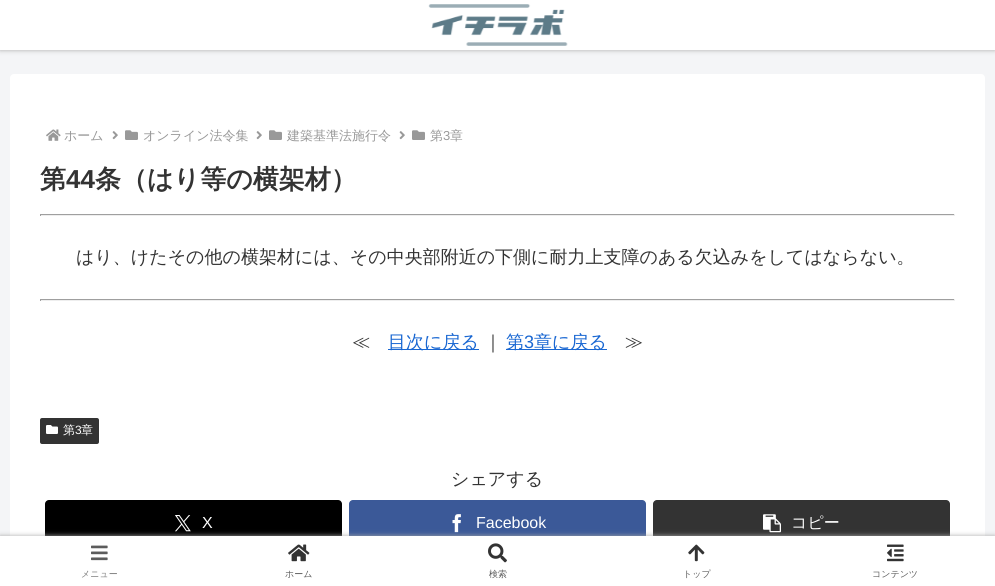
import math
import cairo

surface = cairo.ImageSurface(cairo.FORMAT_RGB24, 995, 586)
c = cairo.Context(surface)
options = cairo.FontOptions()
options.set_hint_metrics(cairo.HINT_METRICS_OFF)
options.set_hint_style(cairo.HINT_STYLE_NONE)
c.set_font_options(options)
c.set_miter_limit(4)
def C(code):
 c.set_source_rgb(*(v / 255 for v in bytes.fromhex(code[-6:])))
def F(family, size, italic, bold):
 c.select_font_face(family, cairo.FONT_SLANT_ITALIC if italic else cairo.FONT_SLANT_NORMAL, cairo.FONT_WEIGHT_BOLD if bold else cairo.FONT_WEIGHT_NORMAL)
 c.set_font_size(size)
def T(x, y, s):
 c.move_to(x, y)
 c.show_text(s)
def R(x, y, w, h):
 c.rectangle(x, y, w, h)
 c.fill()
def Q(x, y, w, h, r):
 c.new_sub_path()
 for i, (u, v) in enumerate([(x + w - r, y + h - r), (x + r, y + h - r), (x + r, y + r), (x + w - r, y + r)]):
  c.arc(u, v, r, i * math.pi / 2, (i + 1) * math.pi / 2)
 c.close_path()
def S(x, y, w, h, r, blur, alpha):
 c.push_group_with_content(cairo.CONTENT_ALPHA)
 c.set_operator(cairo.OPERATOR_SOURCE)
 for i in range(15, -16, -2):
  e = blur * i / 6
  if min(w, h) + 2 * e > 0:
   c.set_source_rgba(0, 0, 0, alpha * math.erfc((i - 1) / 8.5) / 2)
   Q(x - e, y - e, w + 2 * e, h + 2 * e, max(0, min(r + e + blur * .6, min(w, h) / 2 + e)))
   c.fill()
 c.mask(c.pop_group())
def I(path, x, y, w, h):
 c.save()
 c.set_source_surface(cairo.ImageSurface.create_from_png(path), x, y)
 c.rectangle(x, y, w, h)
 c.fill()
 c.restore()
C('f4f5f7')
c.paint()
C('a9a9a9')
S(0,0,995,50,0,2.5,1)
C('ffffff')
R(0,0,995,50)
I('1.png',428,4,140,42)
Q(10,74,975,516,4)
c.fill()
I('2.png',46,129,15,12)
F('WenQuanYi Zen Hei Medium',13,0,0)
C('999999')
T(64,140,'ホーム')
I('3.png',112,131,6,9)
I('4.png',125,130,13,10)
T(143,140,'オンライン法令集')
I('3.png',256,131,6,9)
I('4.png',269,130,13,10)
T(287,140,'建築基準法施行令')
I('3.png',399,131,6,9)
I('4.png',412,130,13,10)
T(430,140,'第')
F('Liberation Sans',13,0,0)
T(443,140,'3')
F('WenQuanYi Zen Hei Medium',13,0,0)
T(450,140,'章')
F('WenQuanYi Zen Hei',26,0,1)
C('333333')
T(40,188,'第')
F('Liberation Sans',26,0,1)
T(66,188,'44')
F('WenQuanYi Zen Hei',26,0,1)
T(95,188,'条（はり等の横架材）')
C('9f9f9f')
R(40,214,915,1)
C('eeeeee')
R(954,214,1,2)
R(40,215,915,1)
C('9f9f9f')
R(40,214,1,2)
F('WenQuanYi Zen Hei Medium',18,0,0)
C('333333')
T(76,263,'はり、けたその他の横架材には、その中央部附近の下側に耐力上支障のある欠込みをしてはならない。')
C('9f9f9f')
R(40,299,915,1)
C('eeeeee')
R(954,299,1,2)
R(40,300,915,1)
C('9f9f9f')
R(40,299,1,2)
C('333333')
T(352,348,'≪')
C('1967d2')
R(388,349,91,1)
T(388,348,'目次に戻る')
C('333333')
T(484,348,'｜')
C('1967d2')
R(506,349,101,1)
T(506,348,'第')
F('Liberation Sans',18,0,0)
T(524,348,'3')
F('WenQuanYi Zen Hei Medium',18,0,0)
T(534,348,'章に戻る')
C('333333')
T(625,348,'≫')
Q(40,418,59,26,2)
c.fill()
I('5.png',46,425,12,9)
F('WenQuanYi Zen Hei Medium',12,0,0)
C('ffffff')
T(63,434,'第')
F('Liberation Sans',12,0,0)
T(75,434,'3')
F('WenQuanYi Zen Hei Medium',12,0,0)
T(81,434,'章')
F('WenQuanYi Zen Hei Medium',18,0,0)
C('333333')
T(451,485,'シェアする')
C('000000')
Q(45,500,297,45,4)
c.fill()
I('6.png',175,515,16,17)
F('Liberation Sans',16,0,0)
C('ffffff')
T(202,528,'X')
C('3b5998')
Q(349,500,297,45,4)
c.fill()
I('7.png',452,514,9,19)
C('ffffff')
T(476,528,'Facebook')
C('333333')
Q(653,500,297,45,4)
c.fill()
I('8.png',763,514,18,19)
F('WenQuanYi Zen Hei Medium',16,0,0)
C('ffffff')
T(791,528,'コピー')
C('a9a9a9')
S(0,536,995,50,0,2.5,1)
C('ffffff')
R(0,536,995,50)
I('9.png',91,545,17,16)
F('WenQuanYi Zen Hei Medium',9,0,0)
C('7c7c7c')
T(81,577,'メニュー')
I('10.png',288,544,22,18)
C('5c5c5c')
T(285,577,'ホーム')
I('11.png',488,543,19,20)
T(489,577,'検索')
I('12.png',688,544,17,18)
T(683,577,'トップ')
I('13.png',887,544,17,18)
T(872,577,'コンテンツ')
surface.write_to_png('o.png')
